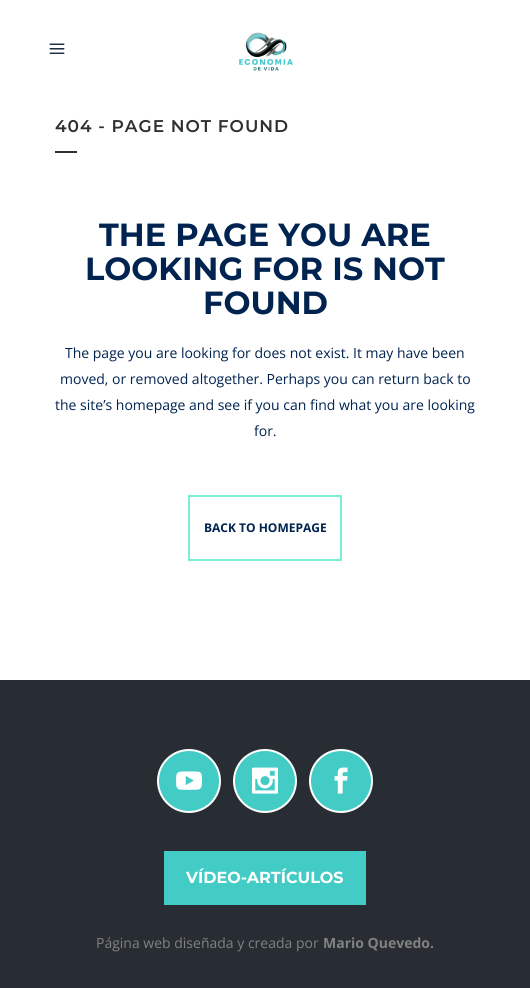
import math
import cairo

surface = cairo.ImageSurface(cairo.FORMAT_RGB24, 530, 988)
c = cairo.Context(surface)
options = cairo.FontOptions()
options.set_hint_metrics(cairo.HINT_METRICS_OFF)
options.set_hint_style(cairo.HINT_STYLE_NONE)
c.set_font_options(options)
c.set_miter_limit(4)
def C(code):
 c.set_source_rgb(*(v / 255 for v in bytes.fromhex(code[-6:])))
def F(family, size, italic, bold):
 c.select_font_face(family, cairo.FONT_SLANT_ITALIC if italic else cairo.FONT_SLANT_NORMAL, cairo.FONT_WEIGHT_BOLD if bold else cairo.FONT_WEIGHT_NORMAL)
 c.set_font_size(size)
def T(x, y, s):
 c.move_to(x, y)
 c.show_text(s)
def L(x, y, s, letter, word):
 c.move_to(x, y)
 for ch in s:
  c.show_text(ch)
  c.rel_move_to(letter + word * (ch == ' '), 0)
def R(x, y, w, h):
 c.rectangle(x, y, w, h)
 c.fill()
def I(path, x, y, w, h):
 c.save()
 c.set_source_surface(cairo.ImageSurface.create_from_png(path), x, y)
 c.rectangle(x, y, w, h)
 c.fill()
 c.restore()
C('ffffff')
c.paint()
I('1.png',49,43,16,11)
I('2.png',239,32,54,39)
F('Montserrat SemiBold',17,0,0)
C('303030')
L(55,132,'404 - PAGE NOT FOUND',1,0)
R(55,151,22,2)
F('Montserrat',32,0,1)
C('002350')
T(99,246,'THE PAGE YOU ARE')
T(85,280,'LOOKING FOR IS NOT')
T(203,314,'FOUND')
F('Open Sans',14,0,0)
T(65,358,'The page you are looking for does not exist. It may have been')
T(60,384,'moved, or removed altogether. Perhaps you can return back to')
T(55,410,'the site’s homepage and see if you can find what you are looking')
T(254,436,'for.')
c.rectangle(189,496,152,64)
C('78f0d3')
c.stroke()
F('Open Sans',12,0,1)
C('002350')
T(204,532,'BACK TO HOMEPAGE')
C('282c33')
R(0,680,530,308)
C('43ccc5')
c.new_path()
c.arc(189,781,31,0,2 * math.pi)
c.fill_preserve()
C('ffffff')
c.stroke()
I('3.png',176,771,26,19)
C('43ccc5')
c.arc(265,781,31,0,2 * math.pi)
c.fill_preserve()
C('ffffff')
c.stroke()
I('4.png',252,767,26,27)
C('43ccc5')
c.arc(341,781,31,0,2 * math.pi)
c.fill_preserve()
C('ffffff')
c.stroke()
I('5.png',334,767,14,27)
C('43ccc5')
c.rectangle(165,852,200,52)
c.fill_preserve()
c.stroke()
F('Montserrat',16,0,1)
C('ffffff')
T(186,883,'VÍDEO-ARTÍCULOS')
F('Open Sans',14,0,0)
C('818181')
T(96,948,'Página web diseñada y creada por')
F('Open Sans',14,0,1)
T(323,948,'Mario Quevedo.')
surface.write_to_png('o.png')
